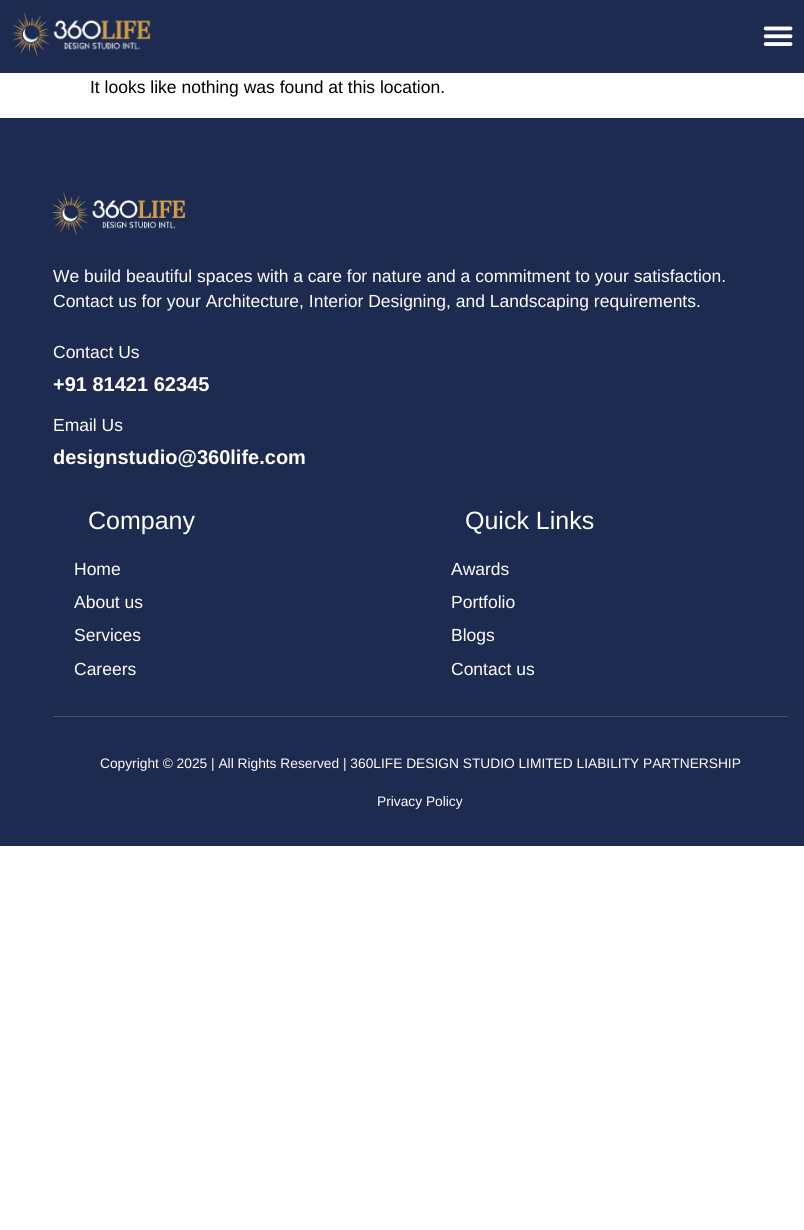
import math
import cairo

surface = cairo.ImageSurface(cairo.FORMAT_RGB24, 804, 1230)
c = cairo.Context(surface)
options = cairo.FontOptions()
options.set_hint_metrics(cairo.HINT_METRICS_OFF)
options.set_hint_style(cairo.HINT_STYLE_NONE)
c.set_font_options(options)
c.set_miter_limit(4)
def C(code):
 c.set_source_rgb(*(v / 255 for v in bytes.fromhex(code[-6:])))
def F(family, size, italic, bold):
 c.select_font_face(family, cairo.FONT_SLANT_ITALIC if italic else cairo.FONT_SLANT_NORMAL, cairo.FONT_WEIGHT_BOLD if bold else cairo.FONT_WEIGHT_NORMAL)
 c.set_font_size(size)
def T(x, y, s):
 c.move_to(x, y)
 c.show_text(s)
def R(x, y, w, h):
 c.rectangle(x, y, w, h)
 c.fill()
def I(path, x, y, w, h):
 c.save()
 c.set_source_surface(cairo.ImageSurface.create_from_png(path), x, y)
 c.rectangle(x, y, w, h)
 c.fill()
 c.restore()
C('ffffff')
c.paint()
C('1d2b50')
R(0,0,804,73)
I('1.png',12,12,139,45)
I('2.png',763,26,30,20)
F('Liberation Sans',17.5,0,0)
C('000000')
T(90,93,'It looks like nothing was found at this location.')
C('1d2b50')
R(0,118,804,728)
I('3.png',52,192,133,43)
C('ffffff')
T(53,282,'We build beautiful spaces with a care for nature and a commitment to your satisfaction.')
T(53,307,'Contact us for your Architecture, Interior Designing, and Landscaping requirements.')
T(53,358,'Contact Us')
F('Liberation Sans',20,0,1)
T(53,391,'+91 81421 62345')
F('Liberation Sans',17.5,0,0)
T(53,431,'Email Us')
F('Liberation Sans',20,0,1)
T(53,464,'designstudio@360life.com')
F('Liberation Sans',25,0,0)
T(88,529,'Company')
F('Liberation Sans',17.5,0,0)
T(74,575,'Home')
T(74,608,'About us')
T(74,641,'Services')
T(74,675,'Careers')
F('Liberation Sans',25,0,0)
T(465,529,'Quick Links')
F('Liberation Sans',17.5,0,0)
T(451,575,'Awards')
T(451,608,'Portfolio')
T(451,641,'Blogs')
T(451,675,'Contact us')
C('434f6e')
R(53,716,735,1)
F('Liberation Sans',13.75,0,0)
C('ffffff')
T(100,768,'Copyright © 2025 | All Rights Reserved | 360LIFE DESIGN STUDIO LIMITED LIABILITY PARTNERSHIP')
T(377,806,'Privacy Policy')
surface.write_to_png('o.png')
